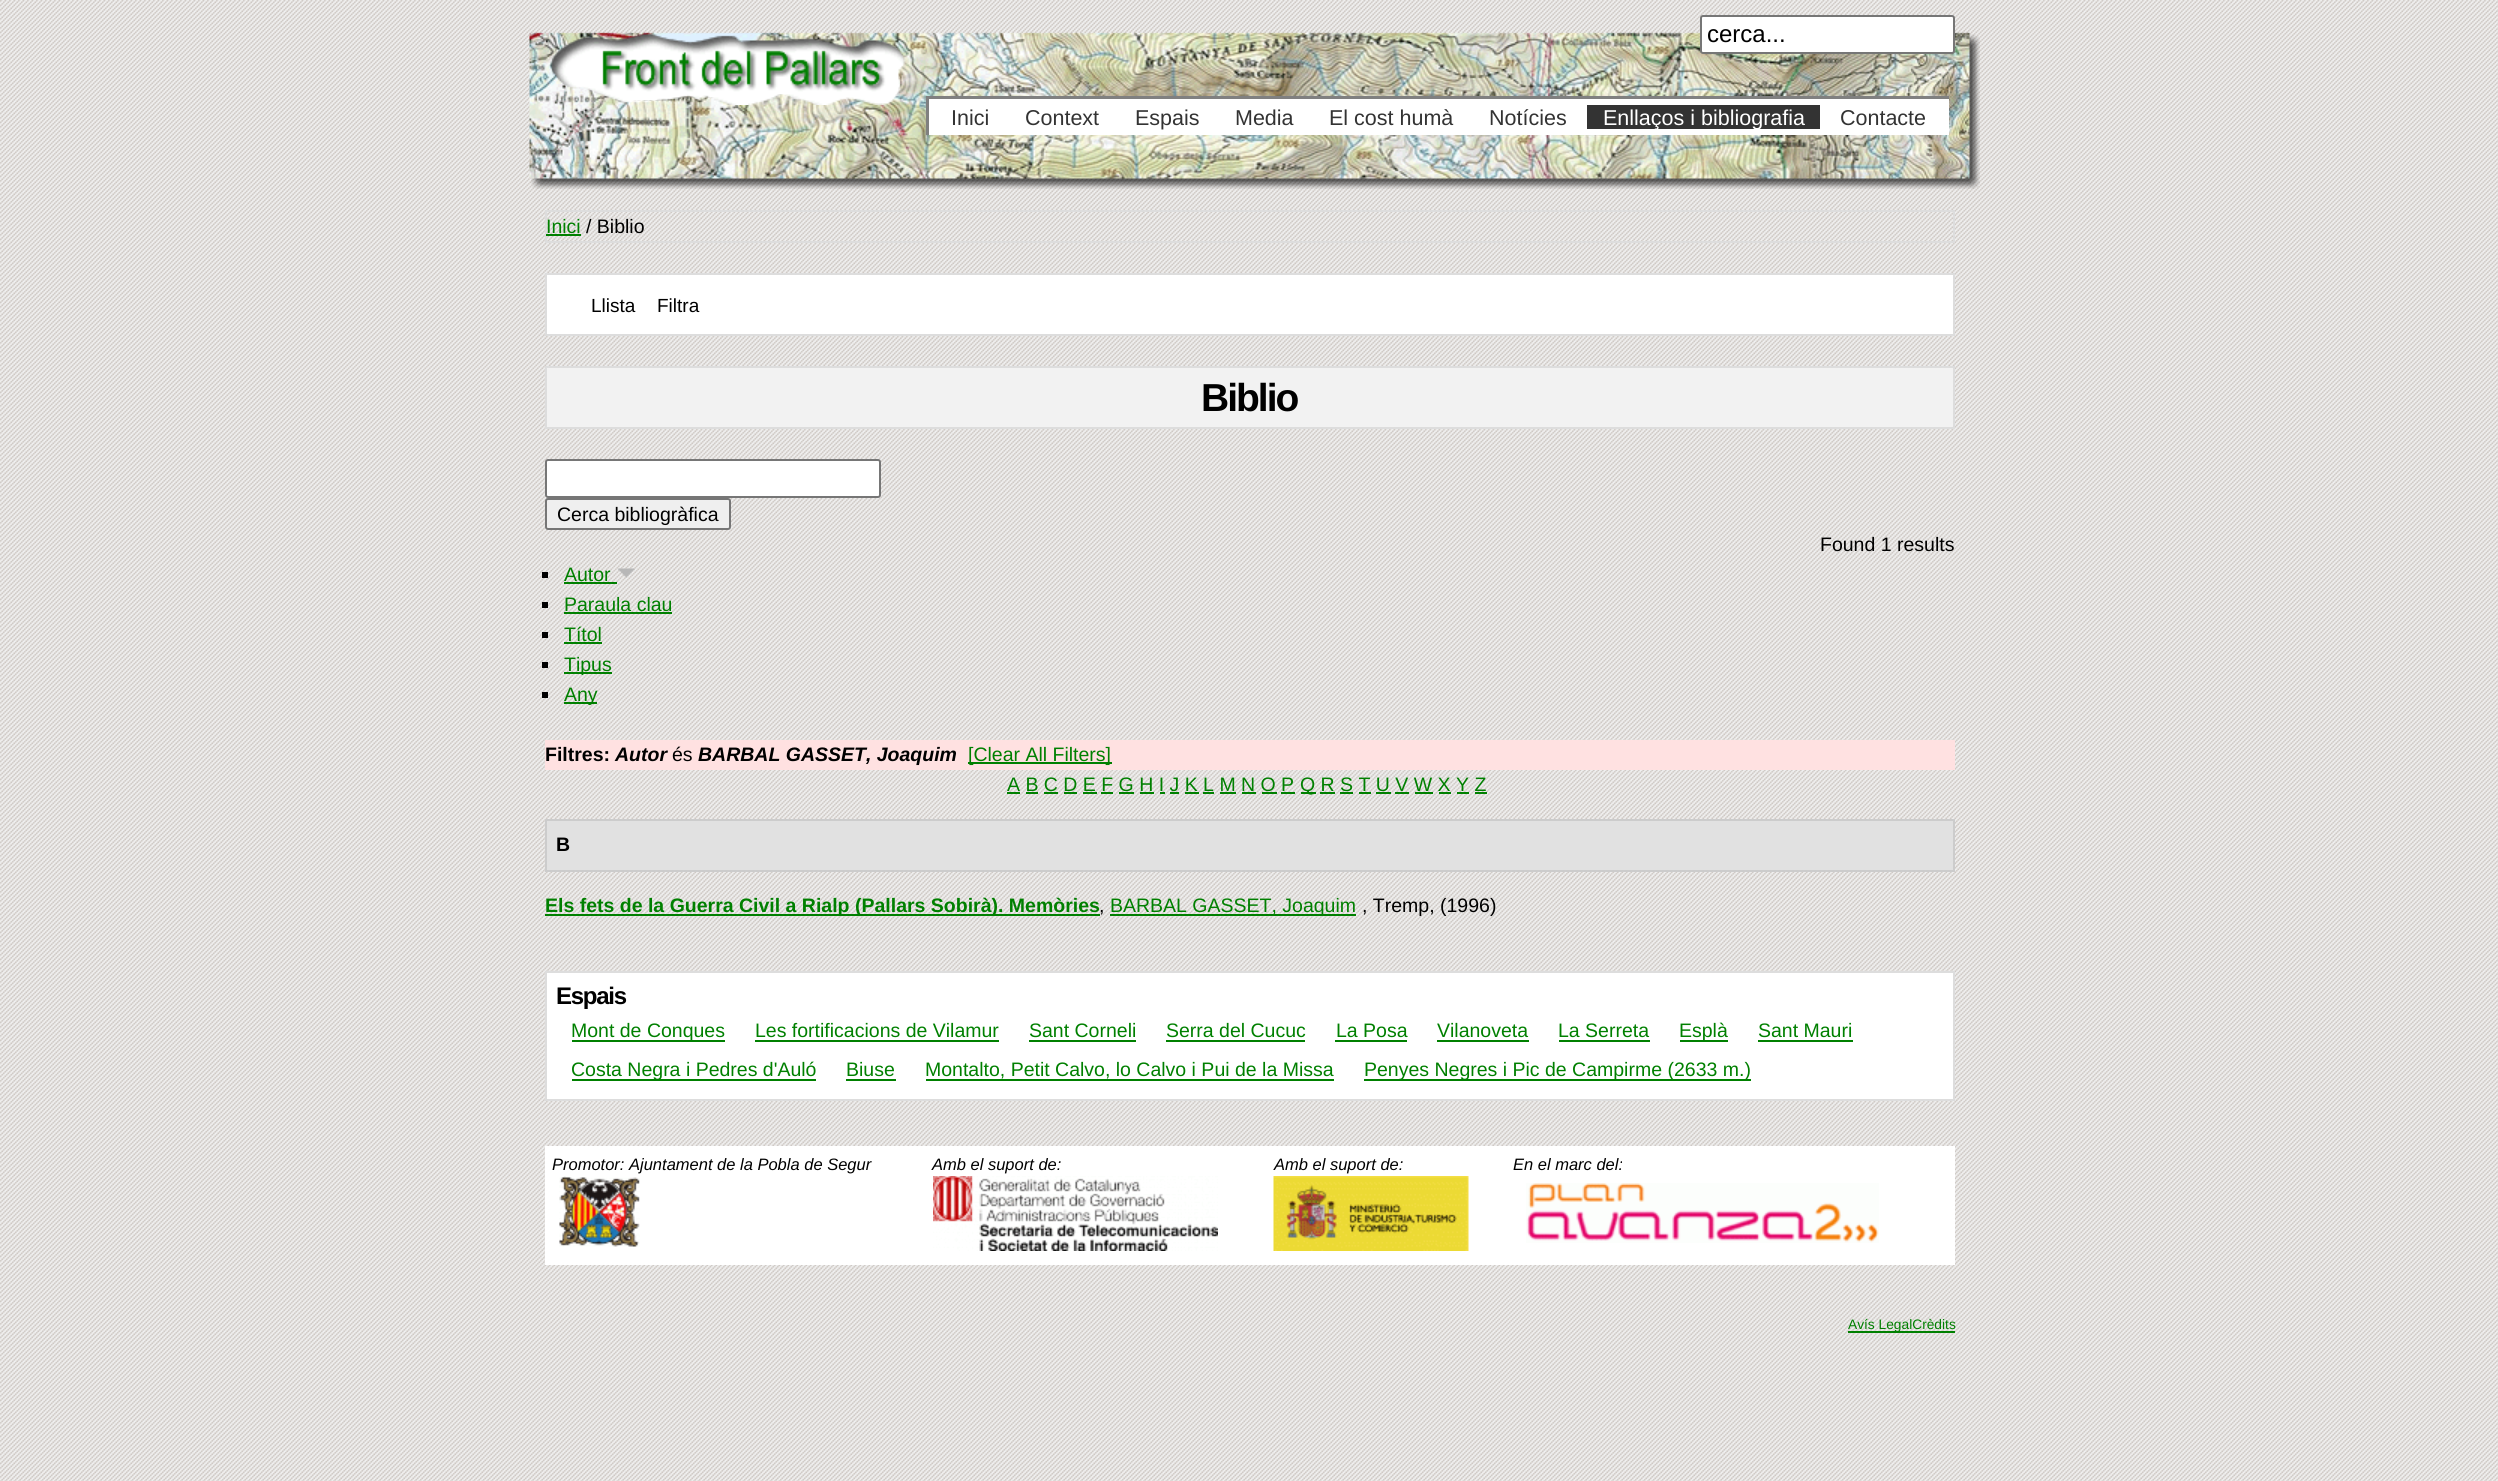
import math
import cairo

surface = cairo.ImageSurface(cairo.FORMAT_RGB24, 2498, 1481)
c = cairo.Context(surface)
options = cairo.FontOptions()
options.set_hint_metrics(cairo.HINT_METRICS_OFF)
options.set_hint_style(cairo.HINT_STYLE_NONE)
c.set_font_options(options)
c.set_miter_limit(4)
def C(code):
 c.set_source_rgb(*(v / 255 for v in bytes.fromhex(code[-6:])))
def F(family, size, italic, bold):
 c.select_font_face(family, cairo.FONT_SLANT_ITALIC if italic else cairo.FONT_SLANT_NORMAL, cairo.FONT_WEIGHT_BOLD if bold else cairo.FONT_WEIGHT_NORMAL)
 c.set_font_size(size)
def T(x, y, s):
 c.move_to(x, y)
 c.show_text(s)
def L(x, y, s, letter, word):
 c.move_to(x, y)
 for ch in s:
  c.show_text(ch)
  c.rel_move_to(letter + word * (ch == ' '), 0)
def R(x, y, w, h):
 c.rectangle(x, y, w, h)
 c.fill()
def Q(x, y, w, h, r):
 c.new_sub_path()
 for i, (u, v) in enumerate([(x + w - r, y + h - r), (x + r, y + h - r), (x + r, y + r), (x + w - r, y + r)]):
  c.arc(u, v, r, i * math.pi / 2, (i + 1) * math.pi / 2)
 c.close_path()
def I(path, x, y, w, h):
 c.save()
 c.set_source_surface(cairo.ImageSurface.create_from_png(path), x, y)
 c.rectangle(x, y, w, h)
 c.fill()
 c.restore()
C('ffffff')
c.paint()
I('1.png',0,0,2498,1481)
I('2.png',529,32,1451,157)
I('3.png',550,32,355,73)
C('ffffff')
Q(1701,16,253,37,2)
c.fill_preserve()
C('767676')
c.stroke()
F('Liberation Sans',24,0,0)
C('000000')
T(1707,42,'cerca...')
C('ffffff')
R(929,99,1020,36)
C('808080')
R(926,96,1023,3)
R(926,96,3,39)
F('Liberation Sans',21.5,0,0)
C('333333')
T(951,125,'Inici')
T(1025,125,'Context')
T(1135,125,'Espais')
T(1235,125,'Media')
T(1329,125,'El cost humà')
T(1489,125,'Notícies')
R(1587,105,233,24)
C('ffffff')
T(1603,125,'Enllaços i bibliografia')
C('333333')
T(1840,125,'Contacte')
c.rectangle(546,211,1408,31)
C('dddddd')
c.stroke()
F('Liberation Sans',19.5,0,0)
C('008000')
T(546,233,'Inici')
R(546,234,35,2)
C('000000')
T(586,233,'/ Biblio')
C('ffffff')
c.rectangle(546,274,1408,61)
c.fill_preserve()
C('dddddd')
c.stroke()
F('Liberation Sans',19,0,0)
C('000000')
T(591,312,'Llista')
T(657,312,'Filtra')
C('f2f2f2')
c.rectangle(546,367,1408,61)
c.fill_preserve()
C('dddddd')
c.stroke()
F('Liberation Sans',39,0,1)
C('000000')
L(1201,411,'Biblio',-2,0)
C('ffffff')
Q(546,460,334,37,2)
c.fill_preserve()
C('767676')
c.stroke()
C('efefef')
Q(546,499,184,30,2)
c.fill_preserve()
C('767676')
c.stroke()
F('Liberation Sans',19.5,0,0)
C('000000')
T(557,521,'Cerca bibliogràfica')
T(1820,551,'Found 1 results')
R(542,572,6,6)
C('008000')
T(564,581,'Autor')
R(564,582,53,2)
I('4.png',617,568,18,10)
C('000000')
R(542,602,6,6)
C('008000')
T(564,611,'Paraula clau')
R(564,612,108,2)
C('000000')
R(542,632,6,6)
C('008000')
T(564,641,'Títol')
R(564,642,38,2)
C('000000')
R(542,662,6,6)
C('008000')
R(564,672,48,2)
T(564,671,'Tipus')
C('000000')
R(542,692,6,6)
C('008000')
R(564,702,33,2)
T(564,701,'Any')
C('ffe1e1')
R(545,740,1410,30)
F('Liberation Sans',19.5,0,1)
C('000000')
T(545,761,'Filtres:')
F('Liberation Sans',19.5,1,1)
T(615,761,'Autor')
F('Liberation Sans',19.5,0,0)
T(672,761,'és')
F('Liberation Sans',19.5,1,1)
T(698,761,'BARBAL GASSET, Joaquim')
C('008000')
R(968,762,144,2)
F('Liberation Sans',19.5,0,0)
T(968,761,'[Clear All Filters]')
T(1007,791,'A B C D E F G H I J K L M N O P')
R(1007,792,13,2)
R(1301,792,15,2)
T(1300,791,'Q R S T U V W X Y Z')
R(1026,792,12,2)
R(1044,792,14,2)
R(1064,792,13,2)
R(1083,792,14,2)
R(1101,792,12,2)
R(1119,792,15,2)
R(1140,792,14,2)
R(1160,792,5,2)
R(1170,792,9,2)
R(1185,792,14,2)
R(1203,792,11,2)
R(1220,792,16,2)
R(1242,792,14,2)
R(1262,792,15,2)
R(1281,792,14,2)
R(1320,792,15,2)
R(1340,792,13,2)
R(1359,792,12,2)
R(1376,792,15,2)
R(1395,792,14,2)
R(1415,792,18,2)
R(1439,792,12,2)
R(1457,792,12,2)
R(1475,792,12,2)
C('e1e1e1')
c.rectangle(546,820,1408,51)
c.fill_preserve()
C('cccccc')
c.stroke()
F('Liberation Sans',19.5,0,1)
C('000000')
T(556,851,'B')
C('008000')
R(545,914,555,2)
T(545,912,'Els fets de la Guerra Civil a Rialp (Pallars Sobirà). Memòries')
F('Liberation Sans',19.5,0,0)
C('000000')
T(1099,912,',')
C('008000')
R(1110,914,246,2)
T(1110,912,'BARBAL GASSET, Joaquim')
C('000000')
T(1362,912,', Tremp, (1996)')
C('ffffff')
c.rectangle(546,972,1408,128)
c.fill_preserve()
C('dddddd')
c.stroke()
F('Liberation Sans',24,0,1)
C('000000')
L(556,1004,'Espais',-1.25,0)
C('008000')
R(572,1040,153,2)
F('Liberation Sans',19.5,0,0)
T(571,1037,'Mont de Conques')
T(755,1037,'Les fortificacions de Vilamur')
R(755,1040,244,2)
T(1029,1037,'Sant Corneli')
R(1029,1040,107,2)
T(1166,1037,'Serra del Cucuc')
R(1166,1040,139,2)
T(1336,1037,'La Posa')
R(1335,1040,72,2)
T(1437,1037,'Vilanoveta')
R(1437,1040,92,2)
T(1558,1037,'La Serreta')
R(1559,1040,91,2)
R(1680,1040,48,2)
T(1679,1037,'Esplà')
T(1758,1037,'Sant Mauri')
R(1758,1040,95,2)
R(572,1079,244,2)
T(571,1076,'Costa Negra i Pedres d\'Auló')
T(846,1076,'Biuse')
R(846,1079,50,2)
T(925,1076,'Montalto, Petit Calvo, lo Calvo i Pui de la Missa')
R(926,1079,408,2)
R(1364,1079,387,2)
T(1364,1076,'Penyes Negres i Pic de Campirme (2633 m.)')
C('ffffff')
R(545,1146,1410,119)
F('Liberation Sans',16.5,1,0)
C('000000')
T(552,1170,'Promotor: Ajuntament de la Pobla de Segur')
I('5.png',559,1176,81,71)
T(932,1170,'Amb el suport de:')
I('6.png',933,1176,285,75)
T(1274,1170,'Amb el suport de:')
I('7.png',1273,1176,196,75)
T(1513,1170,'En el marc del:')
I('8.png',1526,1183,353,60)
C('008000')
R(1848,1331,107,2)
F('Liberation Sans',13.75,0,0)
T(1848,1329,'Avís LegalCrèdits')
surface.write_to_png('o.png')
